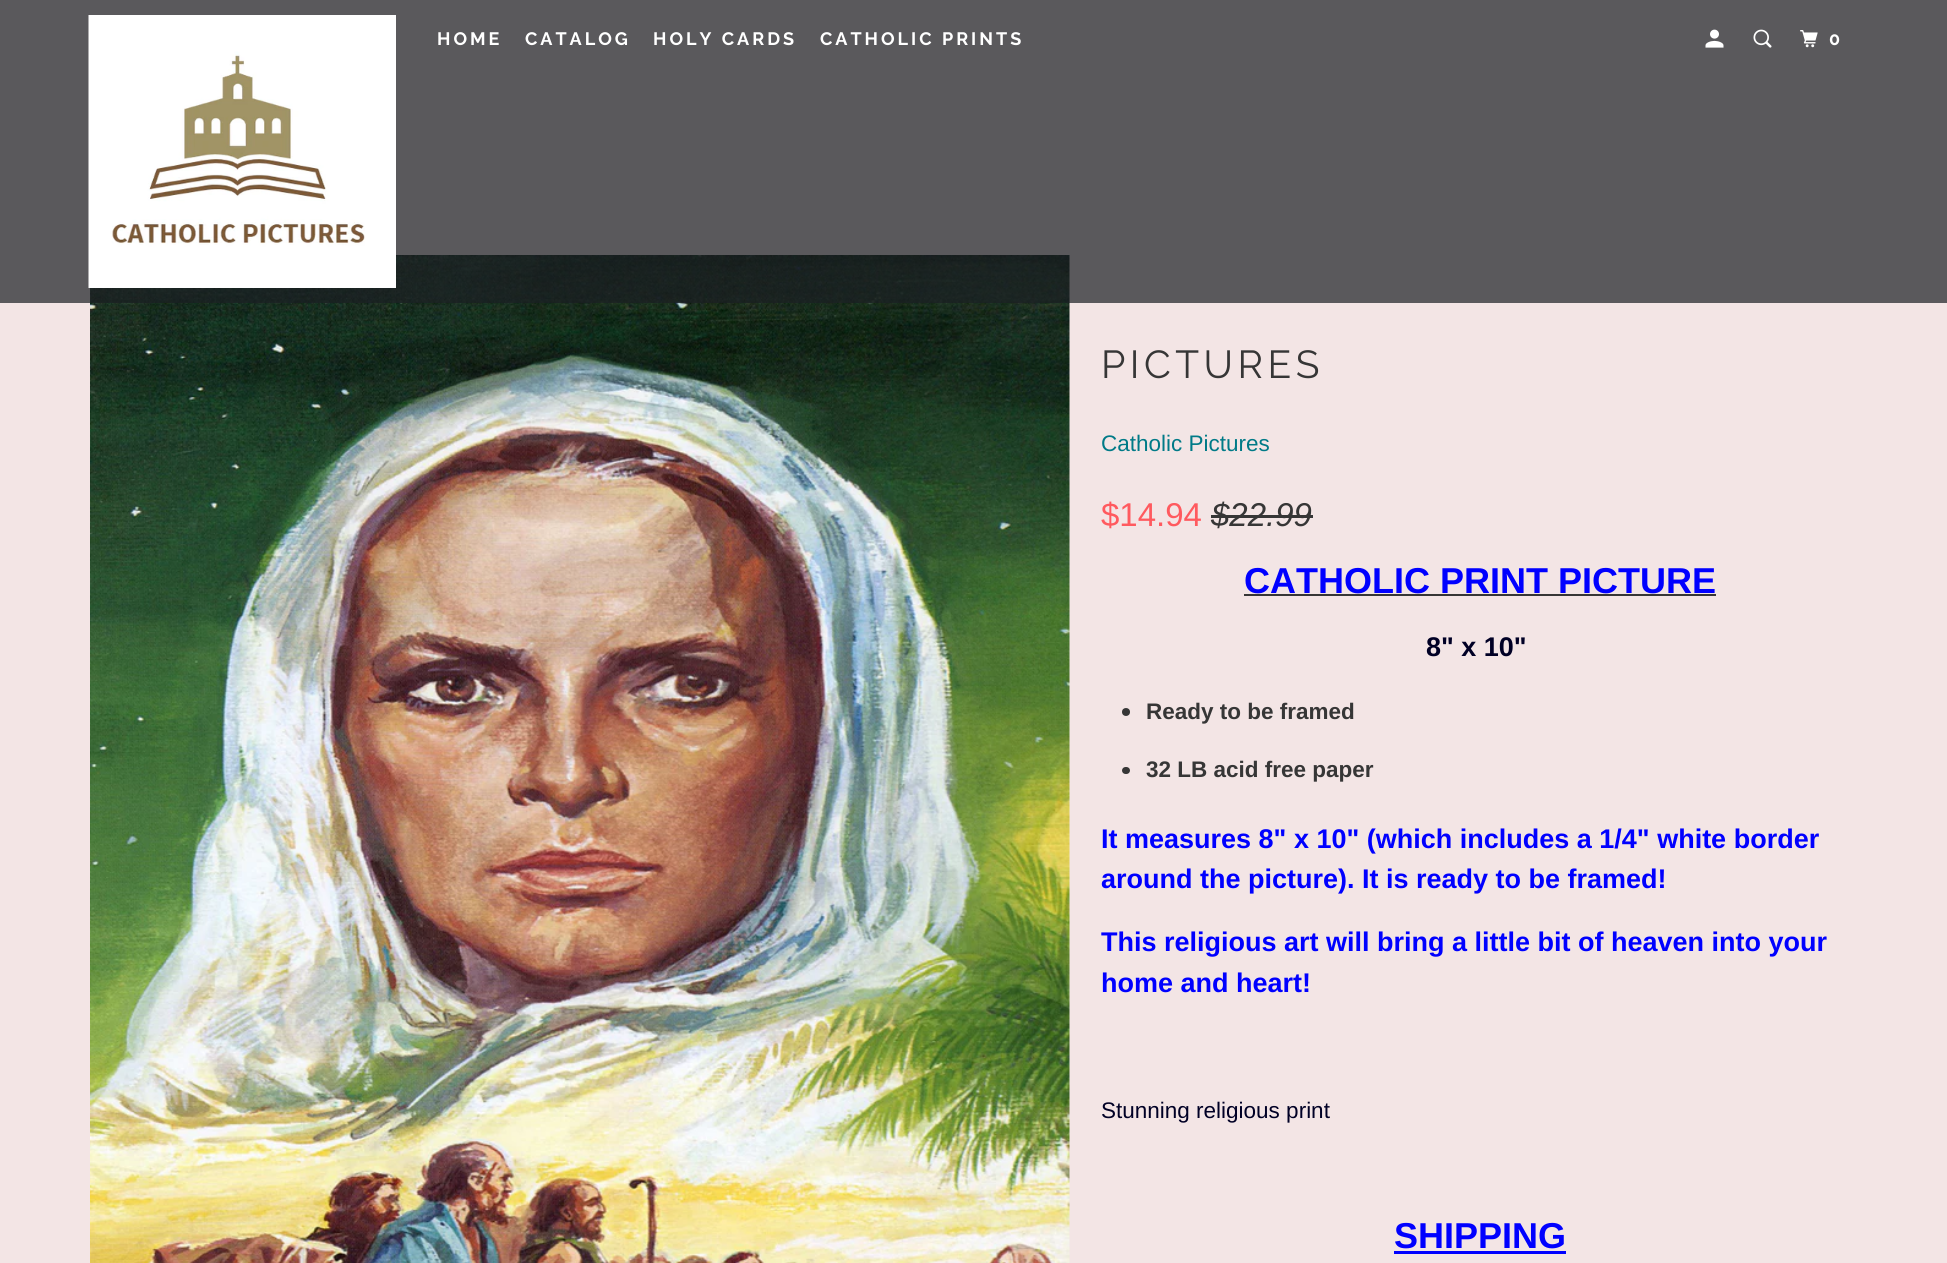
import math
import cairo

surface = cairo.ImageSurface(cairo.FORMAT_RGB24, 1947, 1263)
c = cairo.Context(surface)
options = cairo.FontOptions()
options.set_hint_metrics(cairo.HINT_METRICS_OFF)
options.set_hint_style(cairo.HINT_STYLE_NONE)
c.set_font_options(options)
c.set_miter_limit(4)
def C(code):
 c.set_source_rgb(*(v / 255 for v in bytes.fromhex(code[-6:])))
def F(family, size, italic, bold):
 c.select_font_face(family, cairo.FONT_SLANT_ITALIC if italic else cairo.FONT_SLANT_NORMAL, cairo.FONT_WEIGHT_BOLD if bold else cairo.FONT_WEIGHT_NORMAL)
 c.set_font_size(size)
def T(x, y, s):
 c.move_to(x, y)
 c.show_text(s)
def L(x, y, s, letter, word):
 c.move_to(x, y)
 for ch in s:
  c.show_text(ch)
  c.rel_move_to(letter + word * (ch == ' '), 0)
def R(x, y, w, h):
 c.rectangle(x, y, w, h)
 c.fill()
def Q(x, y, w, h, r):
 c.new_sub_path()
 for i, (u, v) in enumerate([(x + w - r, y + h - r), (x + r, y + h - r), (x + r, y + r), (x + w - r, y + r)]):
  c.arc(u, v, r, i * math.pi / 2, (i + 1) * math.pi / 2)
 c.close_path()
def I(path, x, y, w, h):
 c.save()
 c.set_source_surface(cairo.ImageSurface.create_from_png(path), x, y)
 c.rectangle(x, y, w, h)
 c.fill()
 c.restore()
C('f3e5e5')
c.paint()
I('5.png',90,255,980,1008)
c.set_source_rgba(0.106,0.122,0.137,0.7)
R(0,0,1947,303)
I('1.png',88,15,308,273)
F('Raleway',18,0,1)
C('ffffff')
L(437,45,'HOME',3,0)
L(525,45,'CATALOG',3,0)
L(653,45,'HOLY CARDS',3,0)
L(820,45,'CATHOLIC PRINTS',3,0)
I('2.png',1705,29,19,19)
I('3.png',1753,29,19,19)
I('4.png',1800,30,18,18)
L(1829,45,'0',3,0)
F('Raleway',39,0,0)
C('363636')
L(1101,378,'PICTURES',4.5,0)
F('Liberation Sans',22.5,0,0)
C('007a87')
T(1101,451,'Catholic Pictures')
F('Liberation Sans',33,0,0)
C('ff5a5f')
T(1101,526,'$14.94')
F('Liberation Sans',33,1,0)
C('363636')
T(1211,526,'$22.99')
R(1211,515,102,3)
F('Liberation Sans',36,0,1)
C('0000ff')
T(1244,593,'CATHOLIC PRINT PICTURE')
C('363636')
R(1244,594,472,2)
F('Liberation Sans',27,0,1)
C('000025')
T(1426,656,'8" x 10"')
C('363636')
c.new_path()
c.arc(1126,712,4,0,2 * math.pi)
c.fill()
F('Liberation Sans',22.5,0,1)
T(1146,719,'Ready to be framed')
Q(1122,767,8,7,3.5)
c.fill()
T(1146,777,'32 LB acid free paper')
F('Liberation Sans',27,0,1)
C('0000ff')
T(1101,848,'It measures 8" x 10" (which includes a 1/4" white border')
T(1101,888,'around the picture). It is ready to be framed!')
T(1101,951,'This religious art will bring a little bit of heaven into your')
T(1101,992,'home and heart!')
F('Liberation Sans',22.5,0,0)
C('000025')
T(1101,1118,'Stunning religious print')
F('Liberation Sans',36,0,1)
C('0000ff')
T(1394,1248,'SHIPPING')
R(1394,1251,172,3)
surface.write_to_png('o.png')
